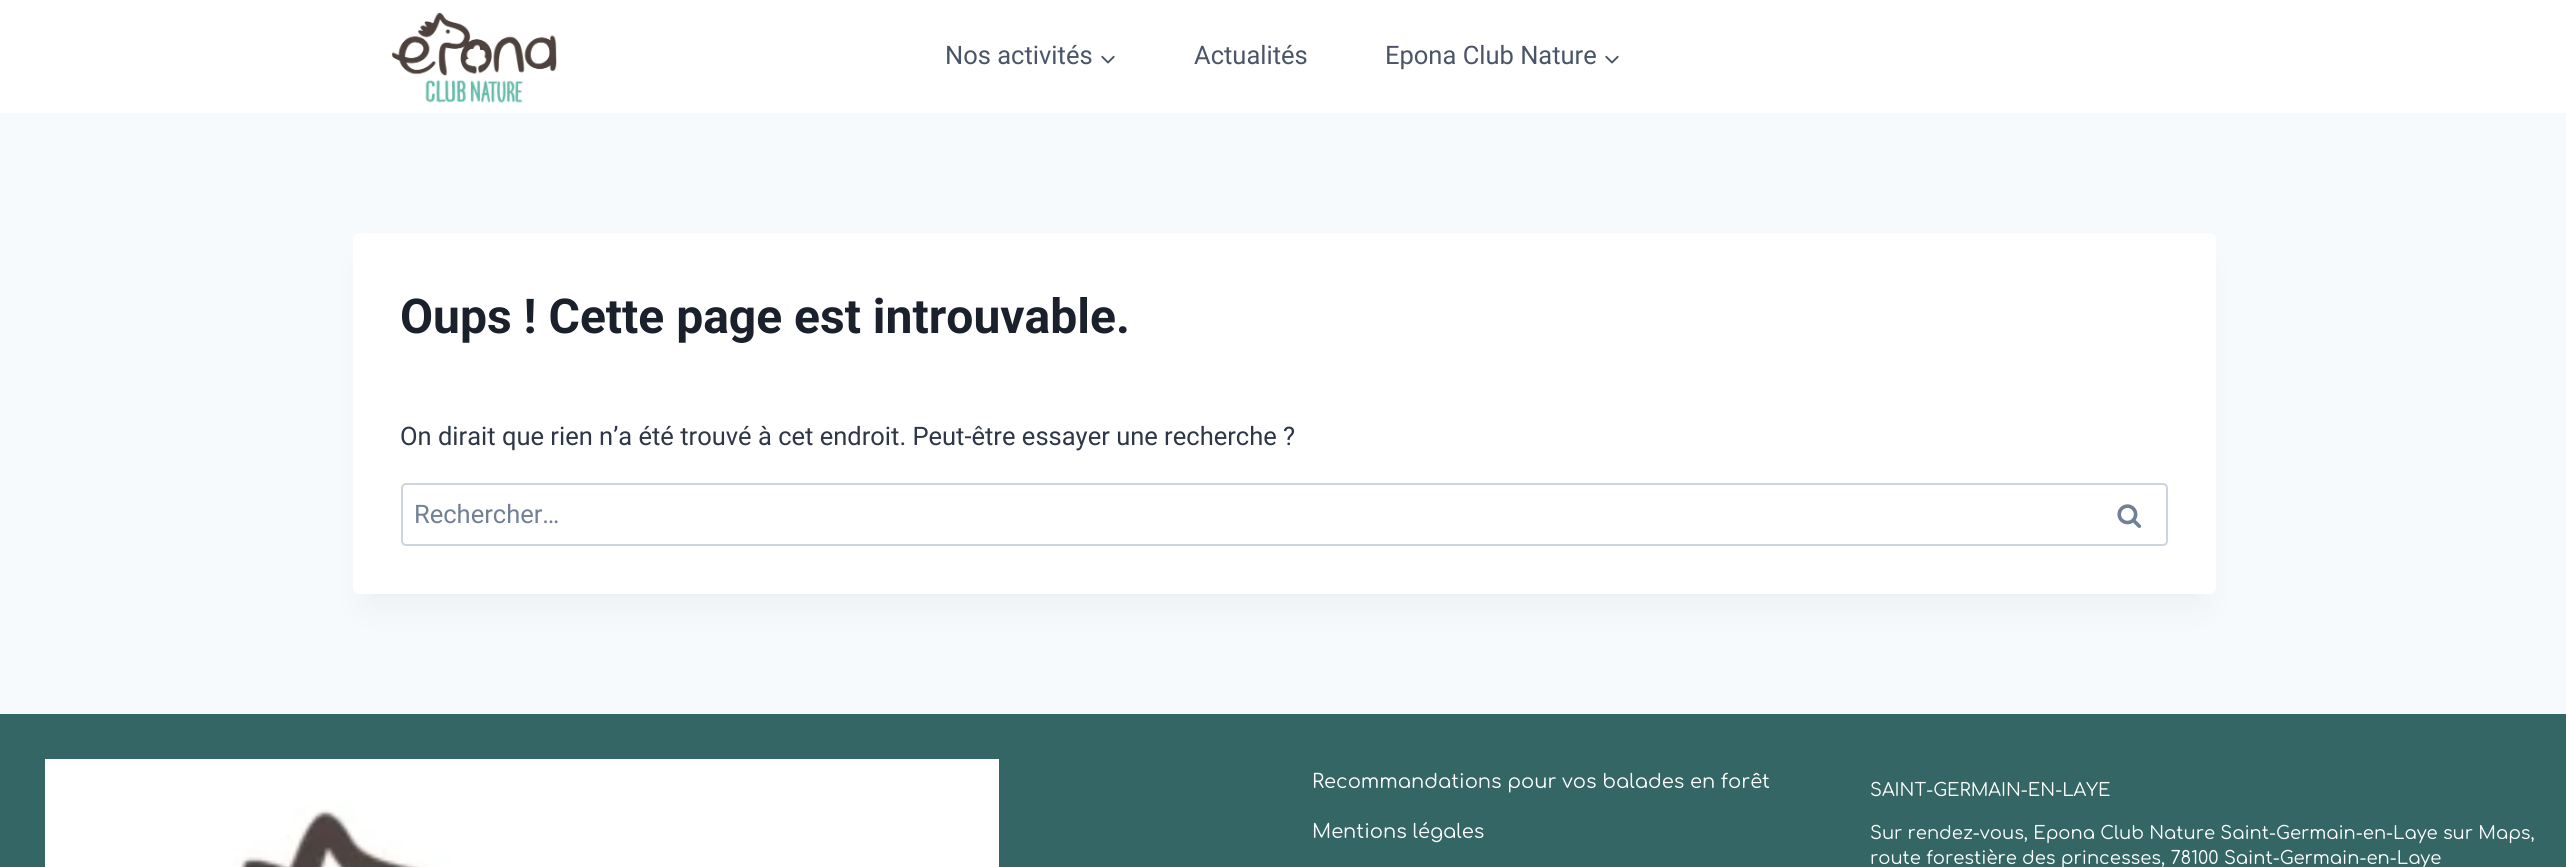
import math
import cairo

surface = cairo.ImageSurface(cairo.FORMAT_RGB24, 2566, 867)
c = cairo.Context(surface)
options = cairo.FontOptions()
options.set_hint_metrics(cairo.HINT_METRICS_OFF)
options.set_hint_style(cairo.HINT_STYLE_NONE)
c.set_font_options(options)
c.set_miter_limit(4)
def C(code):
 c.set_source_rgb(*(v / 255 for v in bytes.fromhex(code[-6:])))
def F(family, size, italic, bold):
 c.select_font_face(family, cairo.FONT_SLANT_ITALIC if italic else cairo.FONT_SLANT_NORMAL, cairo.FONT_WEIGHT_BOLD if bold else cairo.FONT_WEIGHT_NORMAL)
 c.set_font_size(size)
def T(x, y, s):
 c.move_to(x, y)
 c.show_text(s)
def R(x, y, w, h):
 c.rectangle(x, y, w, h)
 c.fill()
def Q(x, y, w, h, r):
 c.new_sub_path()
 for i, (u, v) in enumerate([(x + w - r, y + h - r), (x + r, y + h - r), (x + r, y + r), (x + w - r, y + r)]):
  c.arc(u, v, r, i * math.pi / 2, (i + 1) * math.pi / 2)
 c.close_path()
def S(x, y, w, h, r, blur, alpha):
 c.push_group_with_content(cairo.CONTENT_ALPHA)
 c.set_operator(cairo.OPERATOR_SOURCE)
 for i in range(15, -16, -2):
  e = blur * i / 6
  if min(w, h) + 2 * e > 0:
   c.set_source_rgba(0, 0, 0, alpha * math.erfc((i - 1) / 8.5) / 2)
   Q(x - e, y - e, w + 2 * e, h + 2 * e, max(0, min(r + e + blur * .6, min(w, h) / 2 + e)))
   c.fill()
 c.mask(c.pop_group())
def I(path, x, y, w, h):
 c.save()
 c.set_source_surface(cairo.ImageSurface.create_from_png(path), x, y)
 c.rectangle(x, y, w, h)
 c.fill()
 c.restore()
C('f7fafc')
c.paint()
C('ffffff')
R(0,0,2566,113)
I('1.png',391,12,167,91)
F('Roboto',25.5,0,0)
C('4a5568')
T(945,64,'Nos activités')
I('2.png',1101,55,14,9)
T(1194,64,'Actualités')
T(1385,64,'Epona Club Nature')
I('2.png',1605,55,14,9)
C('000000')
S(368,270,1833,332,0,19,.05)
C('ffffff')
Q(353,233,1863,361,6)
c.fill()
F('Roboto',48,0,1)
C('1a202c')
T(400,333,'Oups ! Cette page est introuvable.')
F('Roboto',25.5,0,0)
C('2d3748')
T(400,445,'On dirait que rien n’a été trouvé à cet endroit. Peut-être essayer une recherche ?')
Q(402,484,1765,61,4)
C('cbd5e0')
c.stroke()
C('718096')
T(414,523,'Rechercher…')
I('3.png',2117,504,25,24)
C('336664')
R(0,714,2566,153)
I('4.png',45,759,954,108)
F('Comfortaa',19.5,0,0)
C('ffffff')
T(1312,788,'Recommandations pour vos balades en forêt')
T(1312,838,'Mentions légales')
F('Comfortaa',18,0,0)
T(1870,796,'SAINT-GERMAIN-EN-LAYE')
T(1870,839,'Sur rendez-vous, Epona Club Nature Saint-Germain-en-Laye sur Maps,')
T(1870,864,'route forestière des princesses, 78100 Saint-Germain-en-Laye')
surface.write_to_png('o.png')
